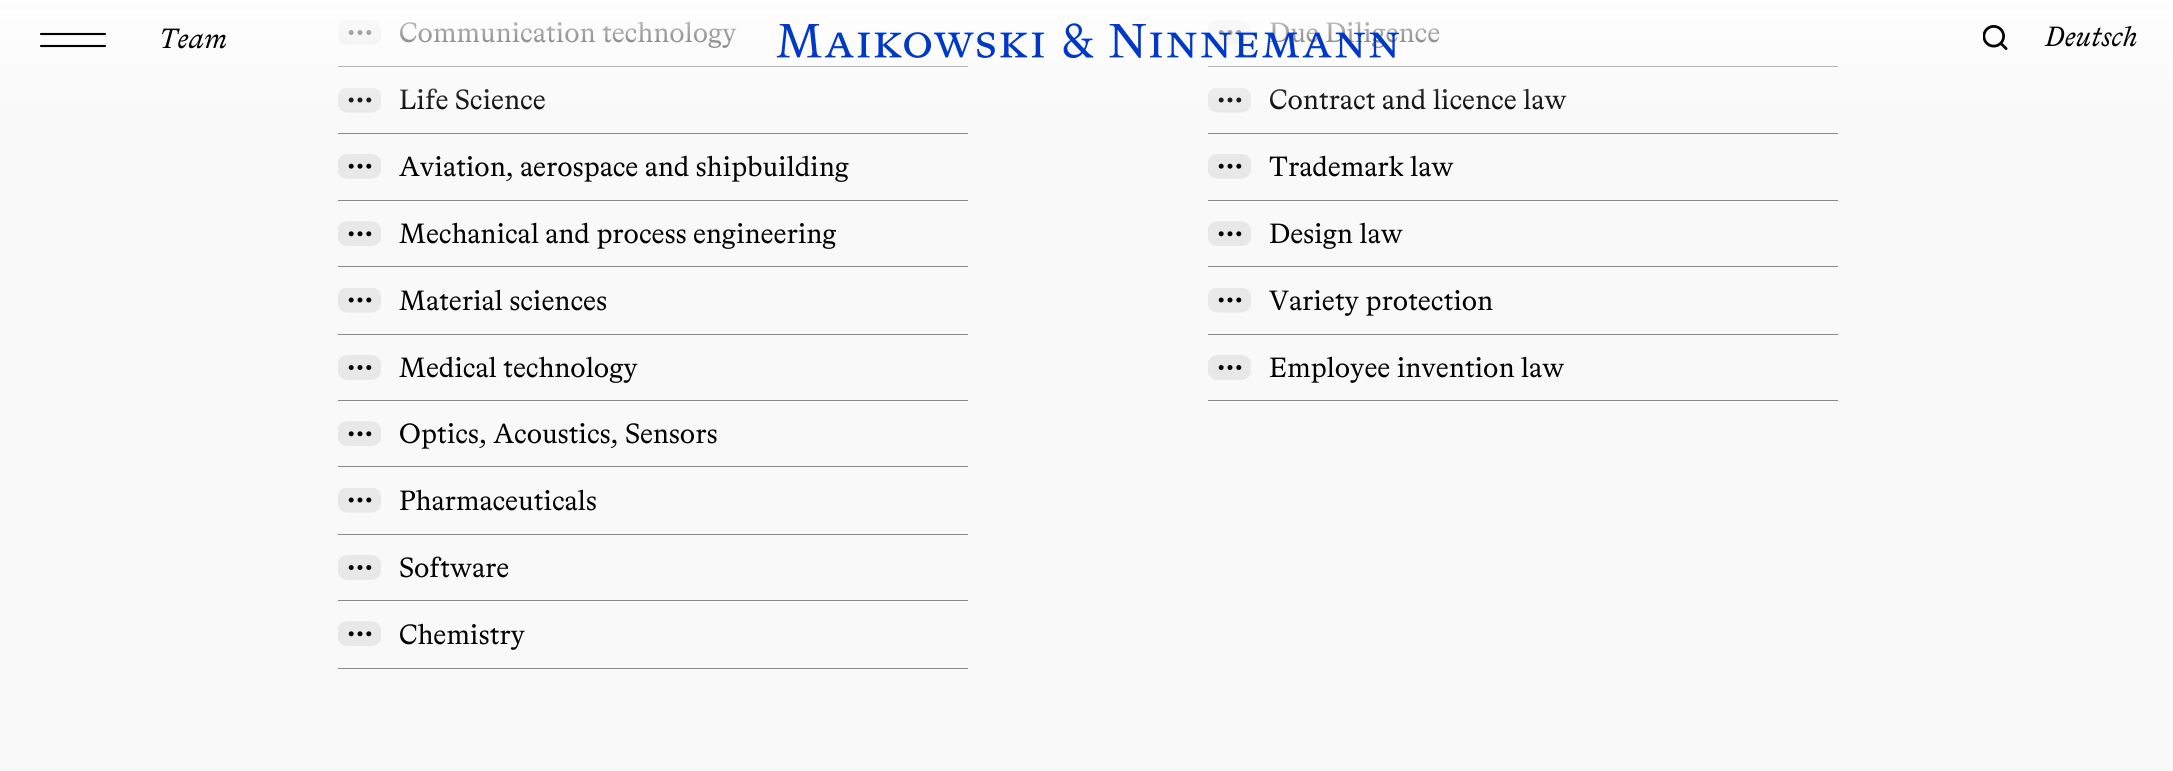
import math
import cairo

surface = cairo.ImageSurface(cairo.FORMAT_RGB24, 2173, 771)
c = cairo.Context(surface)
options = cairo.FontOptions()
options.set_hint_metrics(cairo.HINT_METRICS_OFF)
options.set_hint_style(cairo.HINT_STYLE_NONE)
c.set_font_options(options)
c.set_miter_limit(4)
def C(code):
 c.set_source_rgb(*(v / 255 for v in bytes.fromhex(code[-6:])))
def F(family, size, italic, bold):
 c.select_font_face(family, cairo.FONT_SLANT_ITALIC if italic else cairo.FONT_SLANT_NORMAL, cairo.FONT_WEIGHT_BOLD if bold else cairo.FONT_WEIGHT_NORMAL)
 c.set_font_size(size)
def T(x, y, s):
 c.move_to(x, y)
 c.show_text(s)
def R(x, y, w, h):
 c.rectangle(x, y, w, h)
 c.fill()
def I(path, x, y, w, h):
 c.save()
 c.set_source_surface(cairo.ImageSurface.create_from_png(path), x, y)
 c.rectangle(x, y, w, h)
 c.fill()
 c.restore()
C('f9f9f9')
c.paint()
gradient = cairo.LinearGradient(1087,20,1087,0)
gradient.add_color_stop_rgba(0,0.976,0.976,0.976,1)
gradient.add_color_stop_rgba(.2,0.98,0.98,0.98,1)
gradient.add_color_stop_rgba(1,0.996,0.996,0.996,1)
c.set_source(gradient)
R(0,0,2173,10)
C('898989')
R(338,668,630,1)
I('1.png',338,20,43,25)
F('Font',28,0,0)
C('000000')
T(399,42,'Communication technology')
C('898989')
R(338,66,630,1)
I('2.png',338,88,43,25)
C('000000')
T(399,109,'Life Science')
C('898989')
R(338,133,630,1)
I('3.png',338,154,43,25)
C('000000')
T(399,176,'Aviation, aerospace and shipbuilding')
C('898989')
R(338,200,630,1)
I('4.png',338,221,43,25)
C('000000')
T(399,243,'Mechanical and process engineering')
C('898989')
R(338,266,630,1)
I('2.png',338,288,43,25)
C('000000')
T(399,310,'Material sciences')
C('898989')
R(338,334,630,1)
I('1.png',338,355,43,25)
C('000000')
T(399,377,'Medical technology')
C('898989')
R(338,400,630,1)
I('4.png',338,421,43,25)
C('000000')
T(399,443,'Optics, Acoustics, Sensors')
C('898989')
R(338,466,630,1)
I('2.png',338,488,43,25)
C('000000')
T(399,510,'Pharmaceuticals')
C('898989')
R(338,534,630,1)
I('1.png',338,555,43,25)
C('000000')
T(399,577,'Software')
C('898989')
R(338,600,630,1)
I('4.png',338,621,43,25)
C('000000')
T(399,644,'Chemistry')
C('898989')
R(1208,400,630,1)
I('1.png',1208,20,43,25)
C('000000')
T(1269,42,'Due Diligence')
C('898989')
R(1208,66,630,1)
I('2.png',1208,88,43,25)
C('000000')
T(1269,109,'Contract and licence law')
C('898989')
R(1208,133,630,1)
I('3.png',1208,154,43,25)
C('000000')
T(1269,176,'Trademark law')
C('898989')
R(1208,200,630,1)
I('4.png',1208,221,43,25)
C('000000')
T(1269,243,'Design law')
C('898989')
R(1208,266,630,1)
I('2.png',1208,288,43,25)
C('000000')
T(1269,310,'Variety protection')
C('898989')
R(1208,334,630,1)
I('1.png',1208,355,43,25)
C('000000')
T(1269,377,'Employee invention law')
gradient = cairo.LinearGradient(1087,125,1087,0)
gradient.add_color_stop_rgba(0,1,1,1,0)
gradient.add_color_stop_rgba(.2,1,1,1,.1)
gradient.add_color_stop_rgba(1,1,1,1,.9)
c.set_source(gradient)
R(0,10,2173,100)
c.new_path()
c.move_to(41,34)
c.line_to(105,34)
C('000000')
c.set_line_width(2.1)
c.set_line_cap(cairo.LINE_CAP_ROUND)
c.stroke()
c.new_path()
c.move_to(41,46)
c.line_to(105,46)
c.stroke()
F('Font',28,1,0)
T(159,48,'Team')
I('5.png',776,23,623,36)
I('6.png',1983,25,25,25)
T(2045,46,'Deutsch')
surface.write_to_png('o.png')
